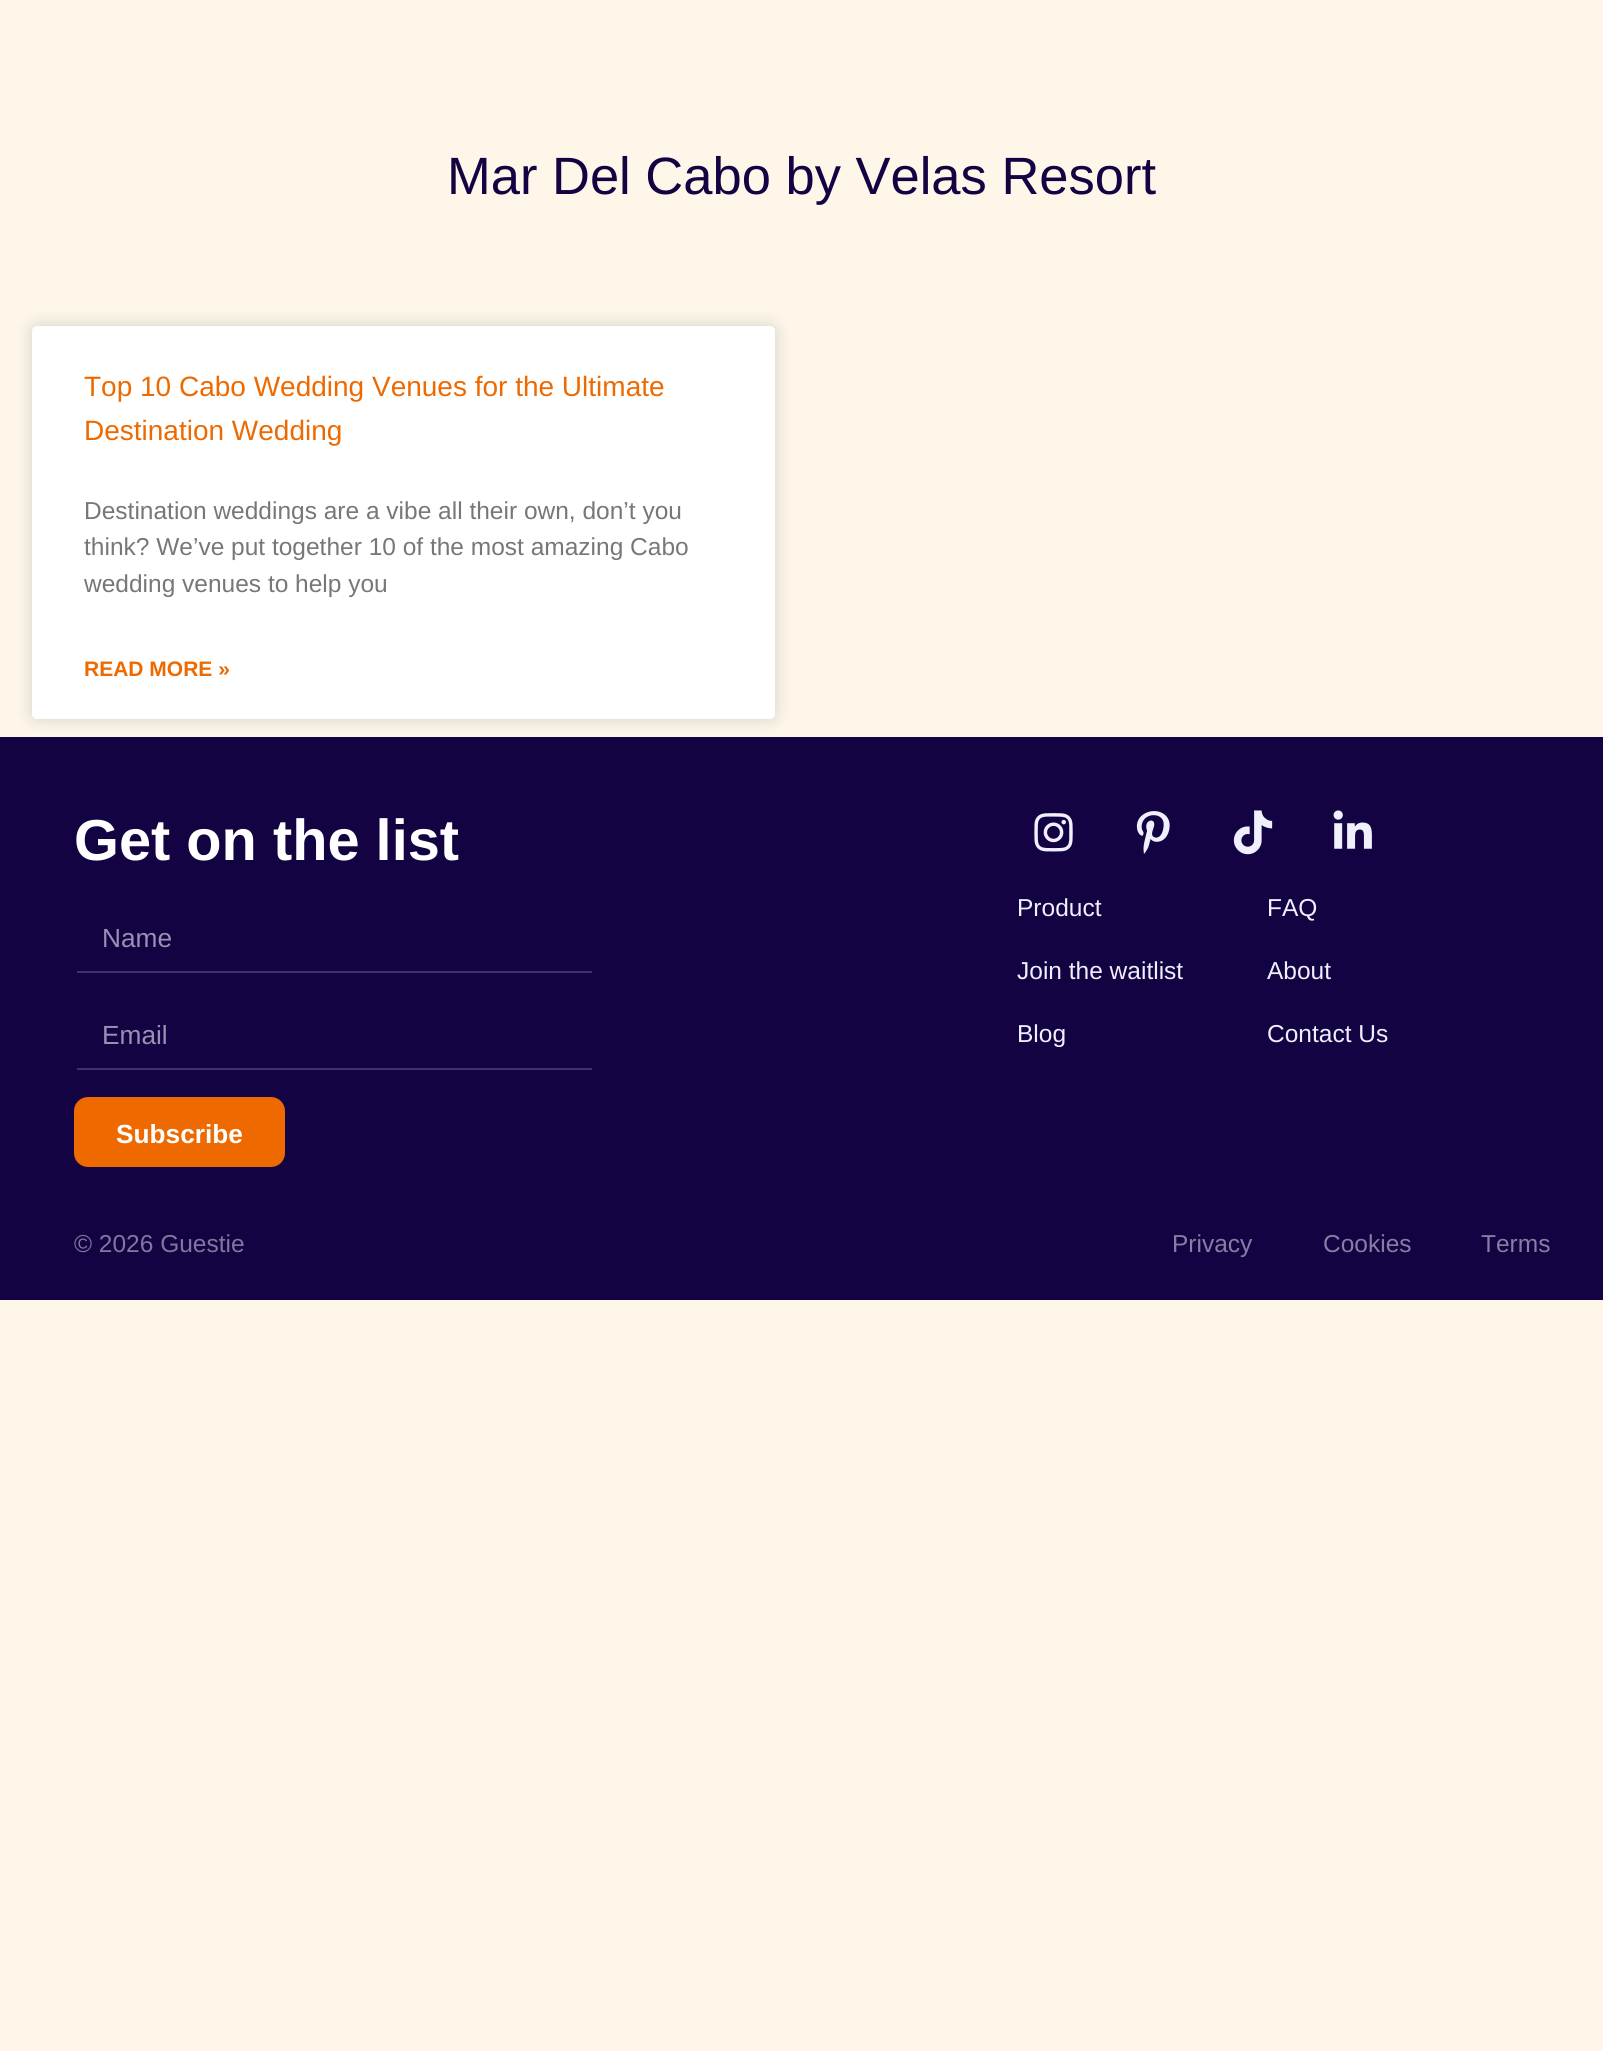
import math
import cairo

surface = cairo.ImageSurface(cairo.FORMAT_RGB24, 1603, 2051)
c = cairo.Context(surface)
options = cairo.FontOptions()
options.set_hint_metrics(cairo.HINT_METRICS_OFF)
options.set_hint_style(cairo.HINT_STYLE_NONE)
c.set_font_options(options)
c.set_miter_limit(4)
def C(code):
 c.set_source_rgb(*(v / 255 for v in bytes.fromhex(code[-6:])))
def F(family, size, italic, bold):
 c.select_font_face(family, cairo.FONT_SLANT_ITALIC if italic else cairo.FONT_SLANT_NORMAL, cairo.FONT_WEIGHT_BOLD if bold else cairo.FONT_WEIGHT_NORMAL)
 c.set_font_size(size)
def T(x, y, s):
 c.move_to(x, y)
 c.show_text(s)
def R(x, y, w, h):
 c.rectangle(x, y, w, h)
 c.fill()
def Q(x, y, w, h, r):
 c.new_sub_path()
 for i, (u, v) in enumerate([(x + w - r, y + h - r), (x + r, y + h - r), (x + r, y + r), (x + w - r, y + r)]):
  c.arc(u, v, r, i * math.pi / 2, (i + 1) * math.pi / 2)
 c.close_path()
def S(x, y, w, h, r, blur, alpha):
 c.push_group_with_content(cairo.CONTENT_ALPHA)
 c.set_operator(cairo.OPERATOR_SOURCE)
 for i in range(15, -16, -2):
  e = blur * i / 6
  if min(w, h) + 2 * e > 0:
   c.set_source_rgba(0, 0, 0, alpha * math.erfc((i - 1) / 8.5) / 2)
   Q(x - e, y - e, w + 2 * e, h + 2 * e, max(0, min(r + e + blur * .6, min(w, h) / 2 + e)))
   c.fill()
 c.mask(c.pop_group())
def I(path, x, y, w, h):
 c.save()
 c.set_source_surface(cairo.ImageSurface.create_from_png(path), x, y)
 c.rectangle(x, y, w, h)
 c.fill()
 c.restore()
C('fdf6e9')
c.paint()
F('Liberation Sans',52.5,0,0)
C('130343')
T(447,194,'Mar Del Cabo by Velas Resort')
C('000000')
S(32,326,743,393,5,9,.15)
C('ffffff')
Q(32,326,743,393,5)
c.fill()
F('Liberation Sans',28,0,0)
C('ee6a00')
T(84,396,'Top 10 Cabo Wedding Venues for the Ultimate')
T(84,440,'Destination Wedding')
F('Liberation Sans',24.5,0,0)
C('777777')
T(84,519,'Destination weddings are a vibe all their own, don’t you')
T(84,555,'think? We’ve put together 10 of the most amazing Cabo')
T(84,592,'wedding venues to help you')
F('Liberation Sans',21,0,1)
C('ee6a00')
T(84,676,'READ MORE »')
C('130343')
R(0,737,1603,563)
F('Liberation Sans',57.75,0,1)
C('ffffff')
T(74,860,'Get on the list')
C('3f3268')
R(77,971,515,2)
F('Liberation Sans',26.25,0,0)
C('9891b3')
T(102,947,'Name')
C('3f3268')
R(77,1068,515,2)
C('9891b3')
T(102,1044,'Email')
C('ee6a00')
Q(74,1097,211,70,14)
c.fill()
F('Liberation Sans',26.25,0,1)
C('ffffff')
T(116,1143,'Subscribe')
I('1.png',1034,813,39,39)
I('2.png',1136,811,34,43)
I('3.png',1233,810,40,45)
I('4.png',1333,810,39,39)
F('Liberation Sans',24.5,0,0)
C('f0f0fd')
T(1017,916,'Product')
T(1017,979,'Join the waitlist')
T(1017,1042,'Blog')
T(1267,916,'FAQ')
T(1267,979,'About')
T(1267,1042,'Contact Us')
C('7f779e')
T(74,1252,'© 2026 Guestie')
C('867ea4')
T(1172,1252,'Privacy')
T(1323,1252,'Cookies')
T(1481,1252,'Terms')
surface.write_to_png('o.png')
